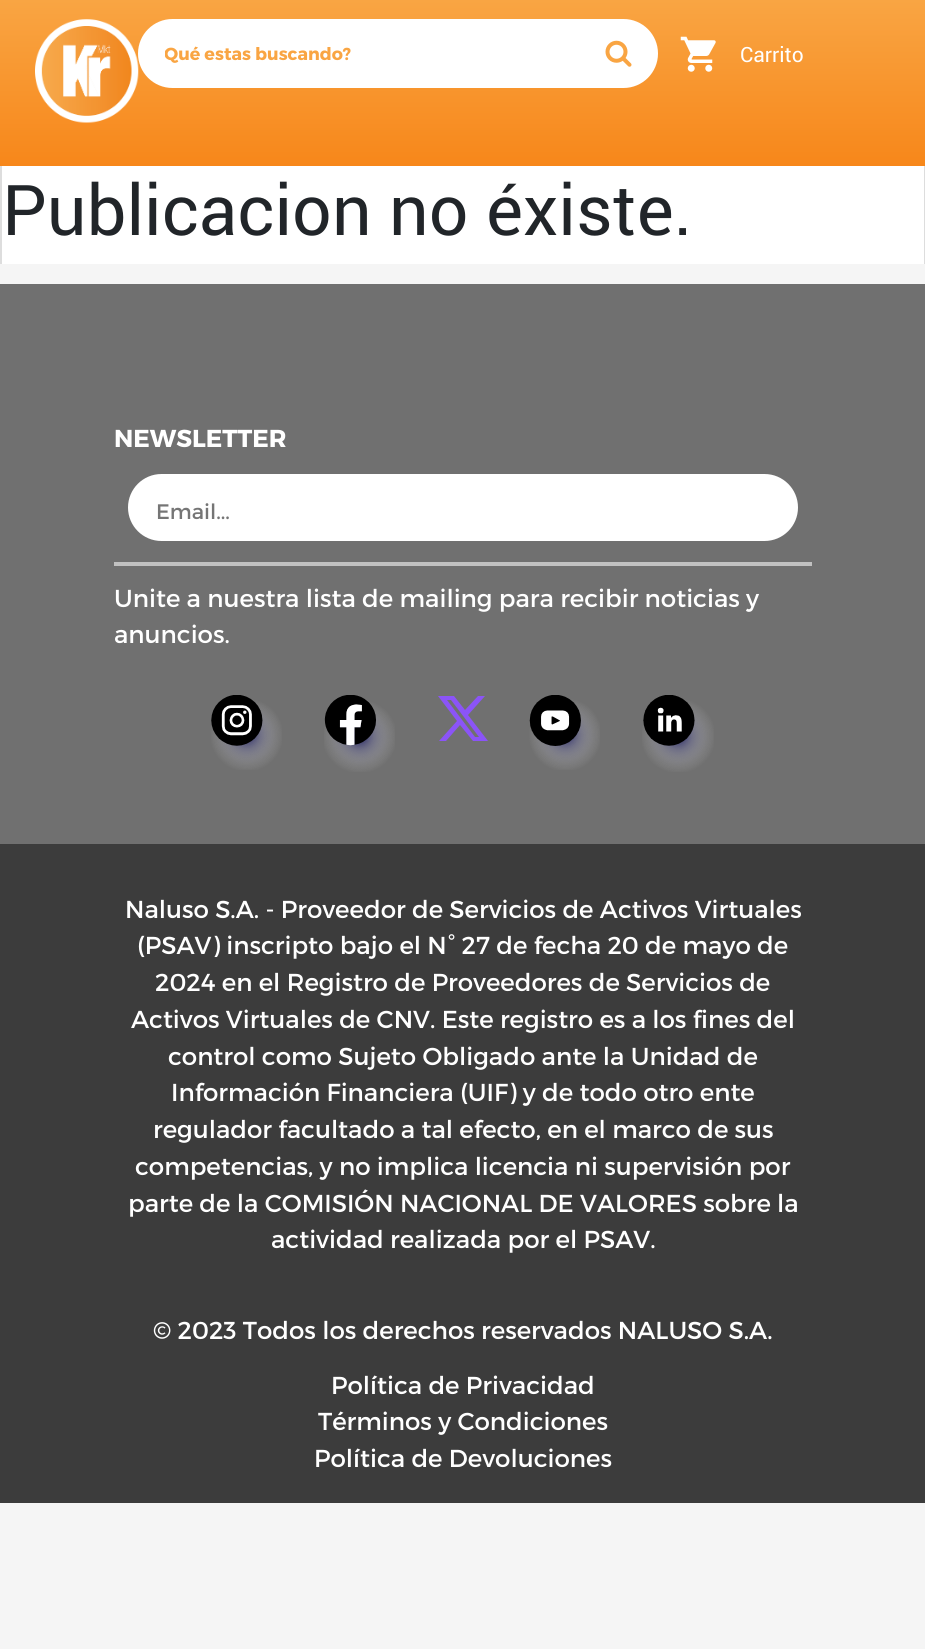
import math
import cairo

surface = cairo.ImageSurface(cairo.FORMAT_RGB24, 925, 1649)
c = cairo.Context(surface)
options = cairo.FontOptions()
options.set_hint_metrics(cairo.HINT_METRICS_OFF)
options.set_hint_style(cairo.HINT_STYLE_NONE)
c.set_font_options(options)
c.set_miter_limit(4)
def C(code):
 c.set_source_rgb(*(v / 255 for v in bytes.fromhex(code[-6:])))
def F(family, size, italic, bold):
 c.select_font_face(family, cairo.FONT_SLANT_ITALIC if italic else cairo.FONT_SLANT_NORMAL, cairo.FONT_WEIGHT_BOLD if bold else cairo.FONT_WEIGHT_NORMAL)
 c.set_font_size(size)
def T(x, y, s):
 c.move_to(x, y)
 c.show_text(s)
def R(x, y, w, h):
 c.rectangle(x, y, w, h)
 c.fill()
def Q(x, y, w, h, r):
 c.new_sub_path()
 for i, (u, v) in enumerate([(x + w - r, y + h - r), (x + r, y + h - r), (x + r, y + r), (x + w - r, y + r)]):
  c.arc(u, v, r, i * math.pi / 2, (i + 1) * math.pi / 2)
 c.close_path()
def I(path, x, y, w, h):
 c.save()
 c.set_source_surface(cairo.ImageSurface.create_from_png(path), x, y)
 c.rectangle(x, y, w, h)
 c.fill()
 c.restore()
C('f5f5f5')
c.paint()
gradient = cairo.LinearGradient(463,0,463,166)
gradient.add_color_stop_rgba(0,0.976,0.647,0.263,1)
gradient.add_color_stop_rgba(1,0.969,0.529,0.102,1)
c.set_source(gradient)
R(0,0,925,166)
I('1.png',35,19,104,104)
C('ffffff')
Q(138,19,520,69,34.5)
c.fill()
c.save()
c.rectangle(165,44,407,21)
c.clip()
F('Montserrat',17.5,0,1)
C('f9a543')
T(164,60,'Qué estas buscando?')
c.restore()
I('2.png',605,40,27,27)
I('3.png',680,36,36,36)
F('Roboto',21,0,0)
T(740,62,'Carrito')
R(2,166,922,98)
C('dddddd')
R(924,166,1,98)
R(0,166,2,98)
F('Roboto',70,0,0)
C('212529')
T(2,235,'Publicacion no éxiste.')
C('707070')
R(0,284,925,560)
F('Montserrat',24.5,0,1)
C('ffffff')
T(114,447,'NEWSLETTER')
Q(128,474,670,67,33.5)
c.fill()
F('Montserrat',21,0,0)
C('757575')
T(156,519,'Email...')
C('c1c1c1')
R(114,562,698,4)
F('Montserrat',24.5,0,0)
C('ffffff')
T(114,607,'Unite a nuestra lista de mailing para recibir noticias y')
T(114,643,'anuncios.')
I('4.png',211,695,71,75)
I('5.png',324,695,71,77)
C('8b54f7')
c.new_path()
c.move_to(478,696)
c.line_to(485,696)
c.line_to(468,715)
c.line_to(488,741)
c.line_to(473,741)
c.line_to(460,725)
c.line_to(446,741)
c.line_to(439,741)
c.line_to(457,721)
c.line_to(438,696)
c.line_to(454,696)
c.line_to(465,710)
c.close_path()
c.move_to(475,737)
c.line_to(479,737)
c.line_to(451,700)
c.line_to(447,700)
c.close_path()
c.fill()
I('6.png',529,695,71,75)
I('7.png',642,695,72,77)
C('3c3c3c')
R(0,844,925,659)
C('ffffff')
T(125,918,'Naluso S.A. - Proveedor de Servicios de Activos Virtuales')
T(137,954,'(PSAV) inscripto bajo el N° 27 de fecha 20 de mayo de')
T(155,991,'2024 en el Registro de Proveedores de Servicios de')
T(131,1028,'Activos Virtuales de CNV. Este registro es a los fines del')
T(168,1065,'control como Sujeto Obligado ante la Unidad de')
T(171,1101,'Información Financiera (UIF) y de todo otro ente')
T(153,1138,'regulador facultado a tal efecto, en el marco de sus')
T(135,1175,'competencias, y no implica licencia ni supervisión por')
T(128,1212,'parte de la COMISIÓN NACIONAL DE VALORES sobre la')
T(271,1248,'actividad realizada por el PSAV.')
T(153,1339,'© 2023 Todos los derechos reservados NALUSO S.A.')
T(331,1394,'Política de Privacidad')
T(318,1430,'Términos y Condiciones')
T(314,1467,'Política de Devoluciones')
surface.write_to_png('o.png')
